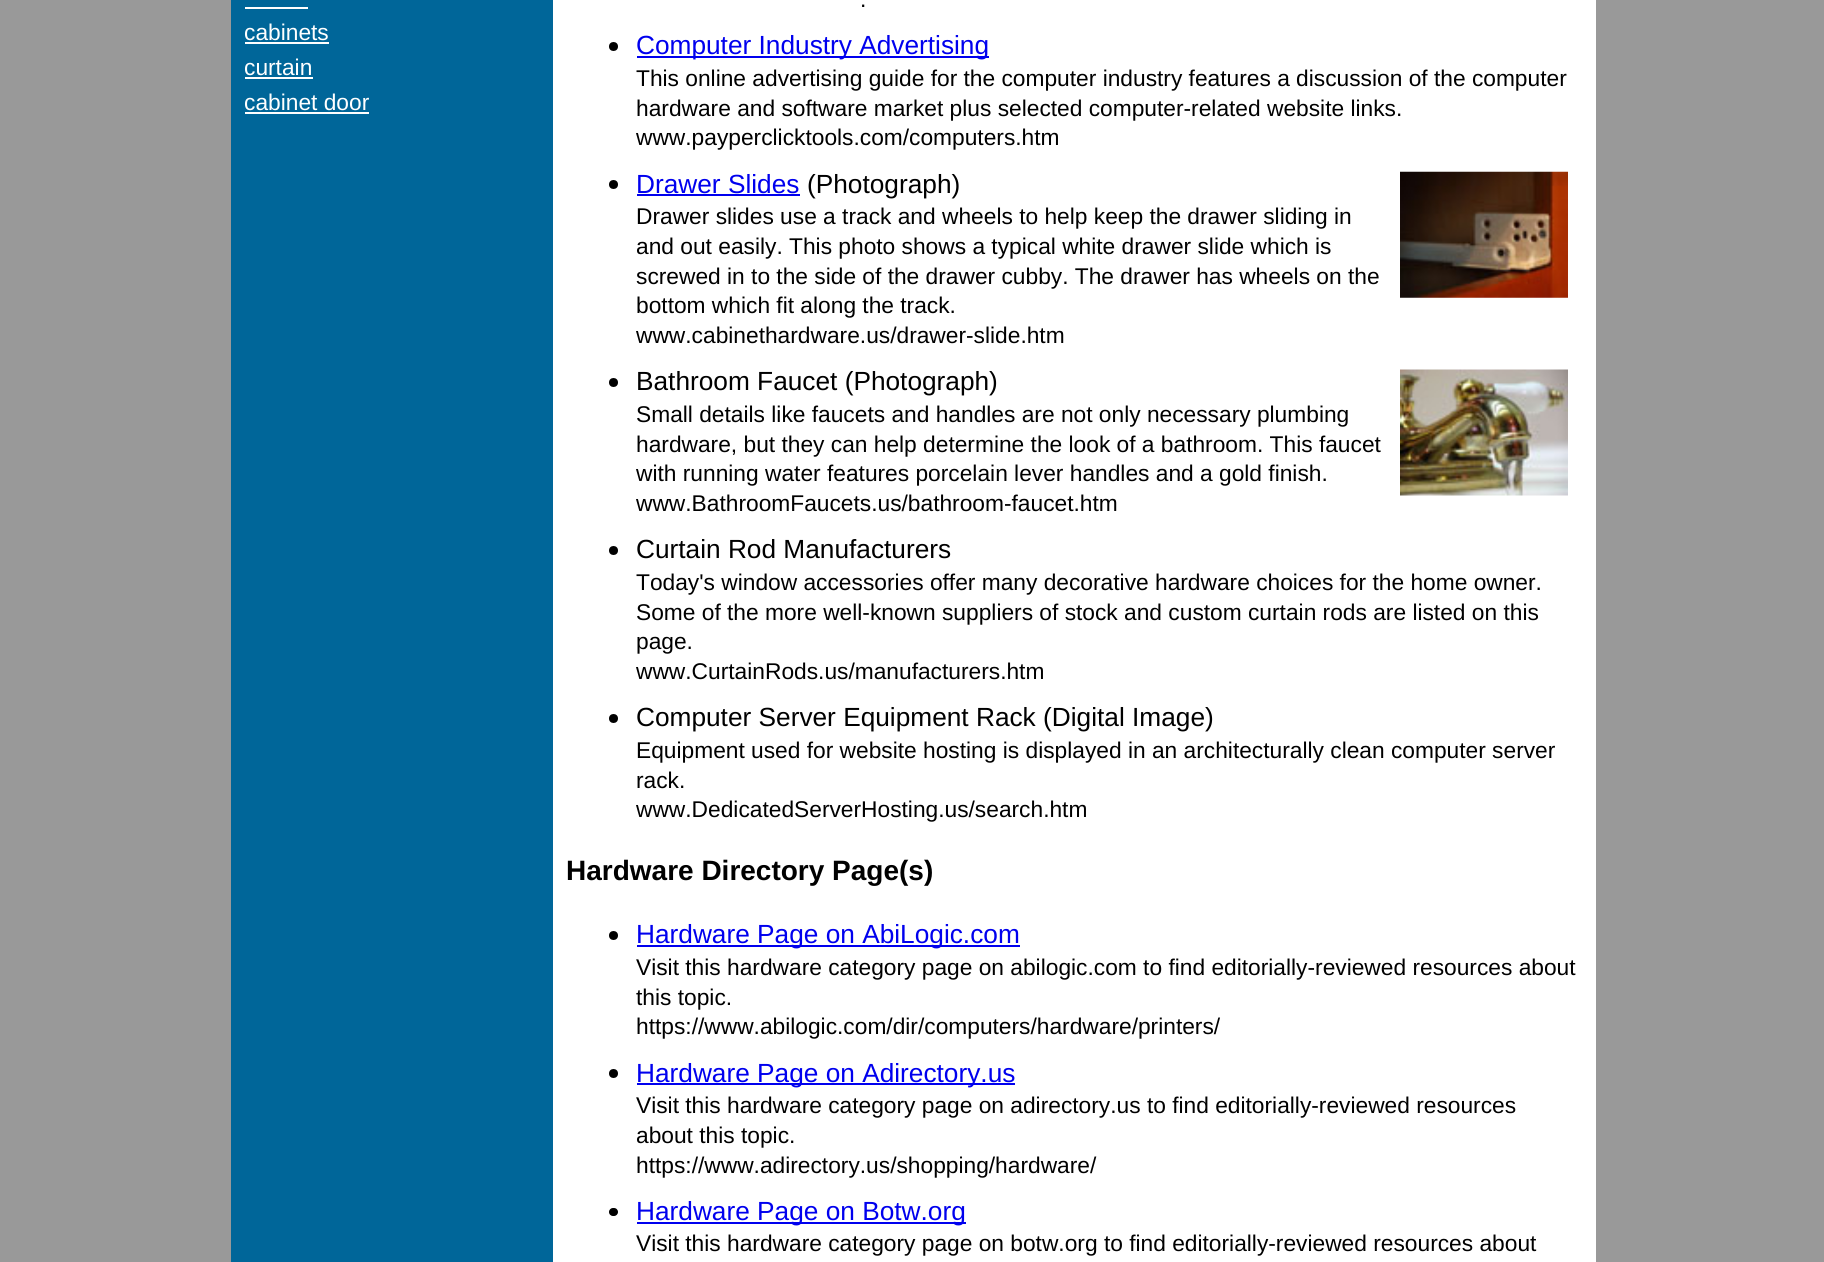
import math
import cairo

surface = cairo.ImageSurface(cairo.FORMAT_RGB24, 1824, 1262)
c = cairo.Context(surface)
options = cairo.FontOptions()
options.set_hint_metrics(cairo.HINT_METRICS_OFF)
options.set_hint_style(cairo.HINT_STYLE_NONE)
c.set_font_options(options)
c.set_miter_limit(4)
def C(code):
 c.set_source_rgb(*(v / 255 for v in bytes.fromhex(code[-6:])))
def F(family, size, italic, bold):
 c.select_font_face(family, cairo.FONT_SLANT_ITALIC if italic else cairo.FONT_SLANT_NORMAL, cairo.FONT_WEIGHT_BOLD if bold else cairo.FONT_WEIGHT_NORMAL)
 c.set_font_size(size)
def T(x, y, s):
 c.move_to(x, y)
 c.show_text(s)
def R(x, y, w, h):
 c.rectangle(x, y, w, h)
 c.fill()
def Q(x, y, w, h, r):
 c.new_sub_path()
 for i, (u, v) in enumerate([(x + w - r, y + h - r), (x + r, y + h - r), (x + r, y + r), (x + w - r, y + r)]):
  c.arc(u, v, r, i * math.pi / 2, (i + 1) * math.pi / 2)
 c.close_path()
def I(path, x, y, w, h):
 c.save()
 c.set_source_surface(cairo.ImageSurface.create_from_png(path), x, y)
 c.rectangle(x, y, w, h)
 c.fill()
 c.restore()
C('999999')
c.paint()
C('ffffff')
R(553,0,1043,1262)
C('006699')
R(231,0,322,1262)
C('ffffff')
R(245,7,63,2)
F('Liberation Sans',22.75,0,0)
T(244,40,'cabinets')
R(245,42,84,2)
T(244,75,'curtain')
R(245,77,68,2)
T(244,110,'cabinet door')
R(245,112,124,2)
C('000000')
T(860,7,'.')
c.new_path()
c.arc(613.5,46.5,4.5,0,2 * math.pi)
c.fill()
C('0000ee')
R(637,56,352,2)
F('Liberation Sans',26.25,0,0)
T(636,54,'Computer Industry Advertising')
F('Liberation Sans',22.75,0,0)
C('000000')
T(636,86,'This online advertising guide for the computer industry features a discussion of the computer')
T(636,116,'hardware and software market plus selected computer-related website links.')
T(636,145,'www.payperclicktools.com/computers.htm')
c.new_path()
c.arc(613.5,184.5,4.5,0,2 * math.pi)
c.fill()
F('Liberation Sans',26.25,0,0)
C('0000ee')
T(636,193,'Drawer Slides')
R(637,194,163,2)
C('000000')
T(807,193,'(Photograph)')
I('1.png',1400,171,168,127)
F('Liberation Sans',22.75,0,0)
T(636,224,'Drawer slides use a track and wheels to help keep the drawer sliding in')
T(636,254,'and out easily. This photo shows a typical white drawer slide which is')
T(636,284,'screwed in to the side of the drawer cubby. The drawer has wheels on the')
T(636,313,'bottom which fit along the track.')
T(636,343,'www.cabinethardware.us/drawer-slide.htm')
c.new_path()
c.arc(613.5,382.5,4.5,0,2 * math.pi)
c.fill()
F('Liberation Sans',26.25,0,0)
T(636,390,'Bathroom Faucet (Photograph)')
I('2.png',1400,369,168,127)
F('Liberation Sans',22.75,0,0)
T(636,422,'Small details like faucets and handles are not only necessary plumbing')
T(636,452,'hardware, but they can help determine the look of a bathroom. This faucet')
T(636,481,'with running water features porcelain lever handles and a gold finish.')
T(636,511,'www.BathroomFaucets.us/bathroom-faucet.htm')
c.new_path()
c.arc(613.5,550.5,4.5,0,2 * math.pi)
c.fill()
F('Liberation Sans',26.25,0,0)
T(636,558,'Curtain Rod Manufacturers')
F('Liberation Sans',22.75,0,0)
T(636,590,'Today\'s window accessories offer many decorative hardware choices for the home owner.')
T(636,620,'Some of the more well-known suppliers of stock and custom curtain rods are listed on this')
T(636,649,'page.')
T(636,679,'www.CurtainRods.us/manufacturers.htm')
c.new_path()
c.arc(613.5,718.5,4.5,0,2 * math.pi)
c.fill()
F('Liberation Sans',26.25,0,0)
T(636,726,'Computer Server Equipment Rack (Digital Image)')
F('Liberation Sans',22.75,0,0)
T(636,758,'Equipment used for website hosting is displayed in an architecturally clean computer server')
T(636,788,'rack.')
T(636,817,'www.DedicatedServerHosting.us/search.htm')
F('Liberation Sans',28,0,1)
T(566,880,'Hardware Directory Page(s)')
c.new_path()
c.arc(613.5,935.5,4.5,0,2 * math.pi)
c.fill()
C('0000ee')
R(637,945,383,2)
F('Liberation Sans',26.25,0,0)
T(636,943,'Hardware Page on AbiLogic.com')
F('Liberation Sans',22.75,0,0)
C('000000')
T(636,975,'Visit this hardware category page on abilogic.com to find editorially-reviewed resources about')
T(636,1005,'this topic.')
T(636,1034,'https://www.abilogic.com/dir/computers/hardware/printers/')
c.new_path()
c.arc(613.5,1073.5,4.5,0,2 * math.pi)
c.fill()
C('0000ee')
R(637,1083,378,2)
F('Liberation Sans',26.25,0,0)
T(636,1082,'Hardware Page on Adirectory.us')
F('Liberation Sans',22.75,0,0)
C('000000')
T(636,1113,'Visit this hardware category page on adirectory.us to find editorially-reviewed resources')
T(636,1143,'about this topic.')
T(636,1173,'https://www.adirectory.us/shopping/hardware/')
Q(609,1208,9,8,4)
c.fill()
C('0000ee')
R(637,1222,329,2)
F('Liberation Sans',26.25,0,0)
T(636,1220,'Hardware Page on Botw.org')
F('Liberation Sans',22.75,0,0)
C('000000')
T(636,1251,'Visit this hardware category page on botw.org to find editorially-reviewed resources about')
surface.write_to_png('o.png')
